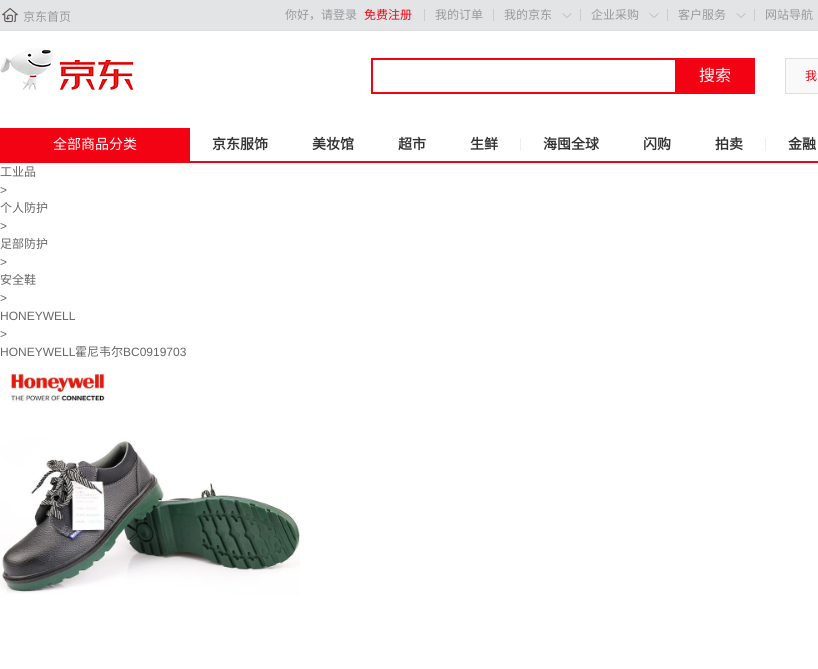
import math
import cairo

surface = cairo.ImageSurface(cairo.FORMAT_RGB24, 818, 669)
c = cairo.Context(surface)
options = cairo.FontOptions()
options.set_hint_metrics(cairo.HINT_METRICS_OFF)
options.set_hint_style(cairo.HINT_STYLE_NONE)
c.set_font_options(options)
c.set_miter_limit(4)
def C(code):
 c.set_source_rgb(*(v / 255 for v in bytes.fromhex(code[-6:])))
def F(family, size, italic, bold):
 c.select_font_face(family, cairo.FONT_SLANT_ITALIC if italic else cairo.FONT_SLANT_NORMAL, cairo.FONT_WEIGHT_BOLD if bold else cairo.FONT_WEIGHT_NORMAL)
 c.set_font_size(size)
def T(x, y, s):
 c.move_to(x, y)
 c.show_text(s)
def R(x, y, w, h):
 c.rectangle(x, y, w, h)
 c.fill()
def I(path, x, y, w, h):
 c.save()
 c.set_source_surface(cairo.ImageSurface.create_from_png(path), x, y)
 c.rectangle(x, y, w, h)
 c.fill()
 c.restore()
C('ffffff')
c.paint()
C('e3e4e5')
R(0,0,818,30)
C('dddddd')
R(0,30,818,1)
I('1.png',2,8,16,15)
F('Noto Sans CJK SC',12,0,0)
C('999999')
T(23,21,'京东首页')
T(285,19,'你好，请登录')
C('f30213')
T(364,19,'免费注册')
C('cccccc')
R(424,9,1,12)
C('999999')
T(435,19,'我的订单')
C('cccccc')
R(493,9,1,12)
C('999999')
T(504,19,'我的京东')
I('2.png',562,13,10,5)
C('cccccc')
R(580,9,1,12)
C('999999')
T(591,19,'企业采购')
I('2.png',649,13,10,5)
C('cccccc')
R(667,9,1,12)
C('999999')
T(678,19,'客户服务')
I('2.png',736,13,10,5)
C('cccccc')
R(754,9,1,12)
C('999999')
T(765,19,'网站导航')
I('3.png',0,48,134,42)
C('f30213')
R(371,58,304,2)
R(371,92,304,2)
R(371,58,2,36)
R(675,58,80,36)
F('Noto Sans CJK SC',16,0,0)
C('ffffff')
T(699,81,'搜索')
C('f9f9f9')
c.rectangle(785.5,58.5,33,35)
c.fill_preserve()
C('dfdfdf')
c.set_line_width(1)
c.stroke()
F('Noto Sans CJK SC',12,0,0)
C('f30213')
T(805,80,'我')
R(0,161,818,2)
R(0,128,190,33)
F('Noto Sans CJK SC',14,0,0)
C('ffffff')
T(53,149,'全部商品分类')
F('Noto Sans CJK SC',14,0,1)
C('333333')
T(212,149,'京东服饰')
T(312,149,'美妆馆')
T(398,149,'超市')
T(470,149,'生鲜')
C('eeeeee')
R(520,138,1,13)
C('333333')
T(543,149,'海囤全球')
T(643,149,'闪购')
T(715,149,'拍卖')
C('eeeeee')
R(765,138,1,13)
C('333333')
T(788,149,'金融')
F('Noto Sans CJK SC',12,0,0)
C('666666')
T(0,176,'工业品')
F('Liberation Sans',12,0,0)
T(0,194,'>')
F('Noto Sans CJK SC',12,0,0)
T(0,212,'个人防护')
F('Liberation Sans',12,0,0)
T(0,230,'>')
F('Noto Sans CJK SC',12,0,0)
T(0,248,'足部防护')
F('Liberation Sans',12,0,0)
T(0,266,'>')
F('Noto Sans CJK SC',12,0,0)
T(0,284,'安全鞋')
F('Liberation Sans',12,0,0)
T(0,302,'>')
T(0,320,'HONEYWELL')
T(0,338,'>')
T(0,356,'HONEYWELL')
F('Noto Sans CJK SC',12,0,0)
T(75,356,'霍尼韦尔')
F('Liberation Sans',12,0,0)
T(123,356,'BC0919703')
I('4.png',0,373,300,221)
surface.write_to_png('o.png')
